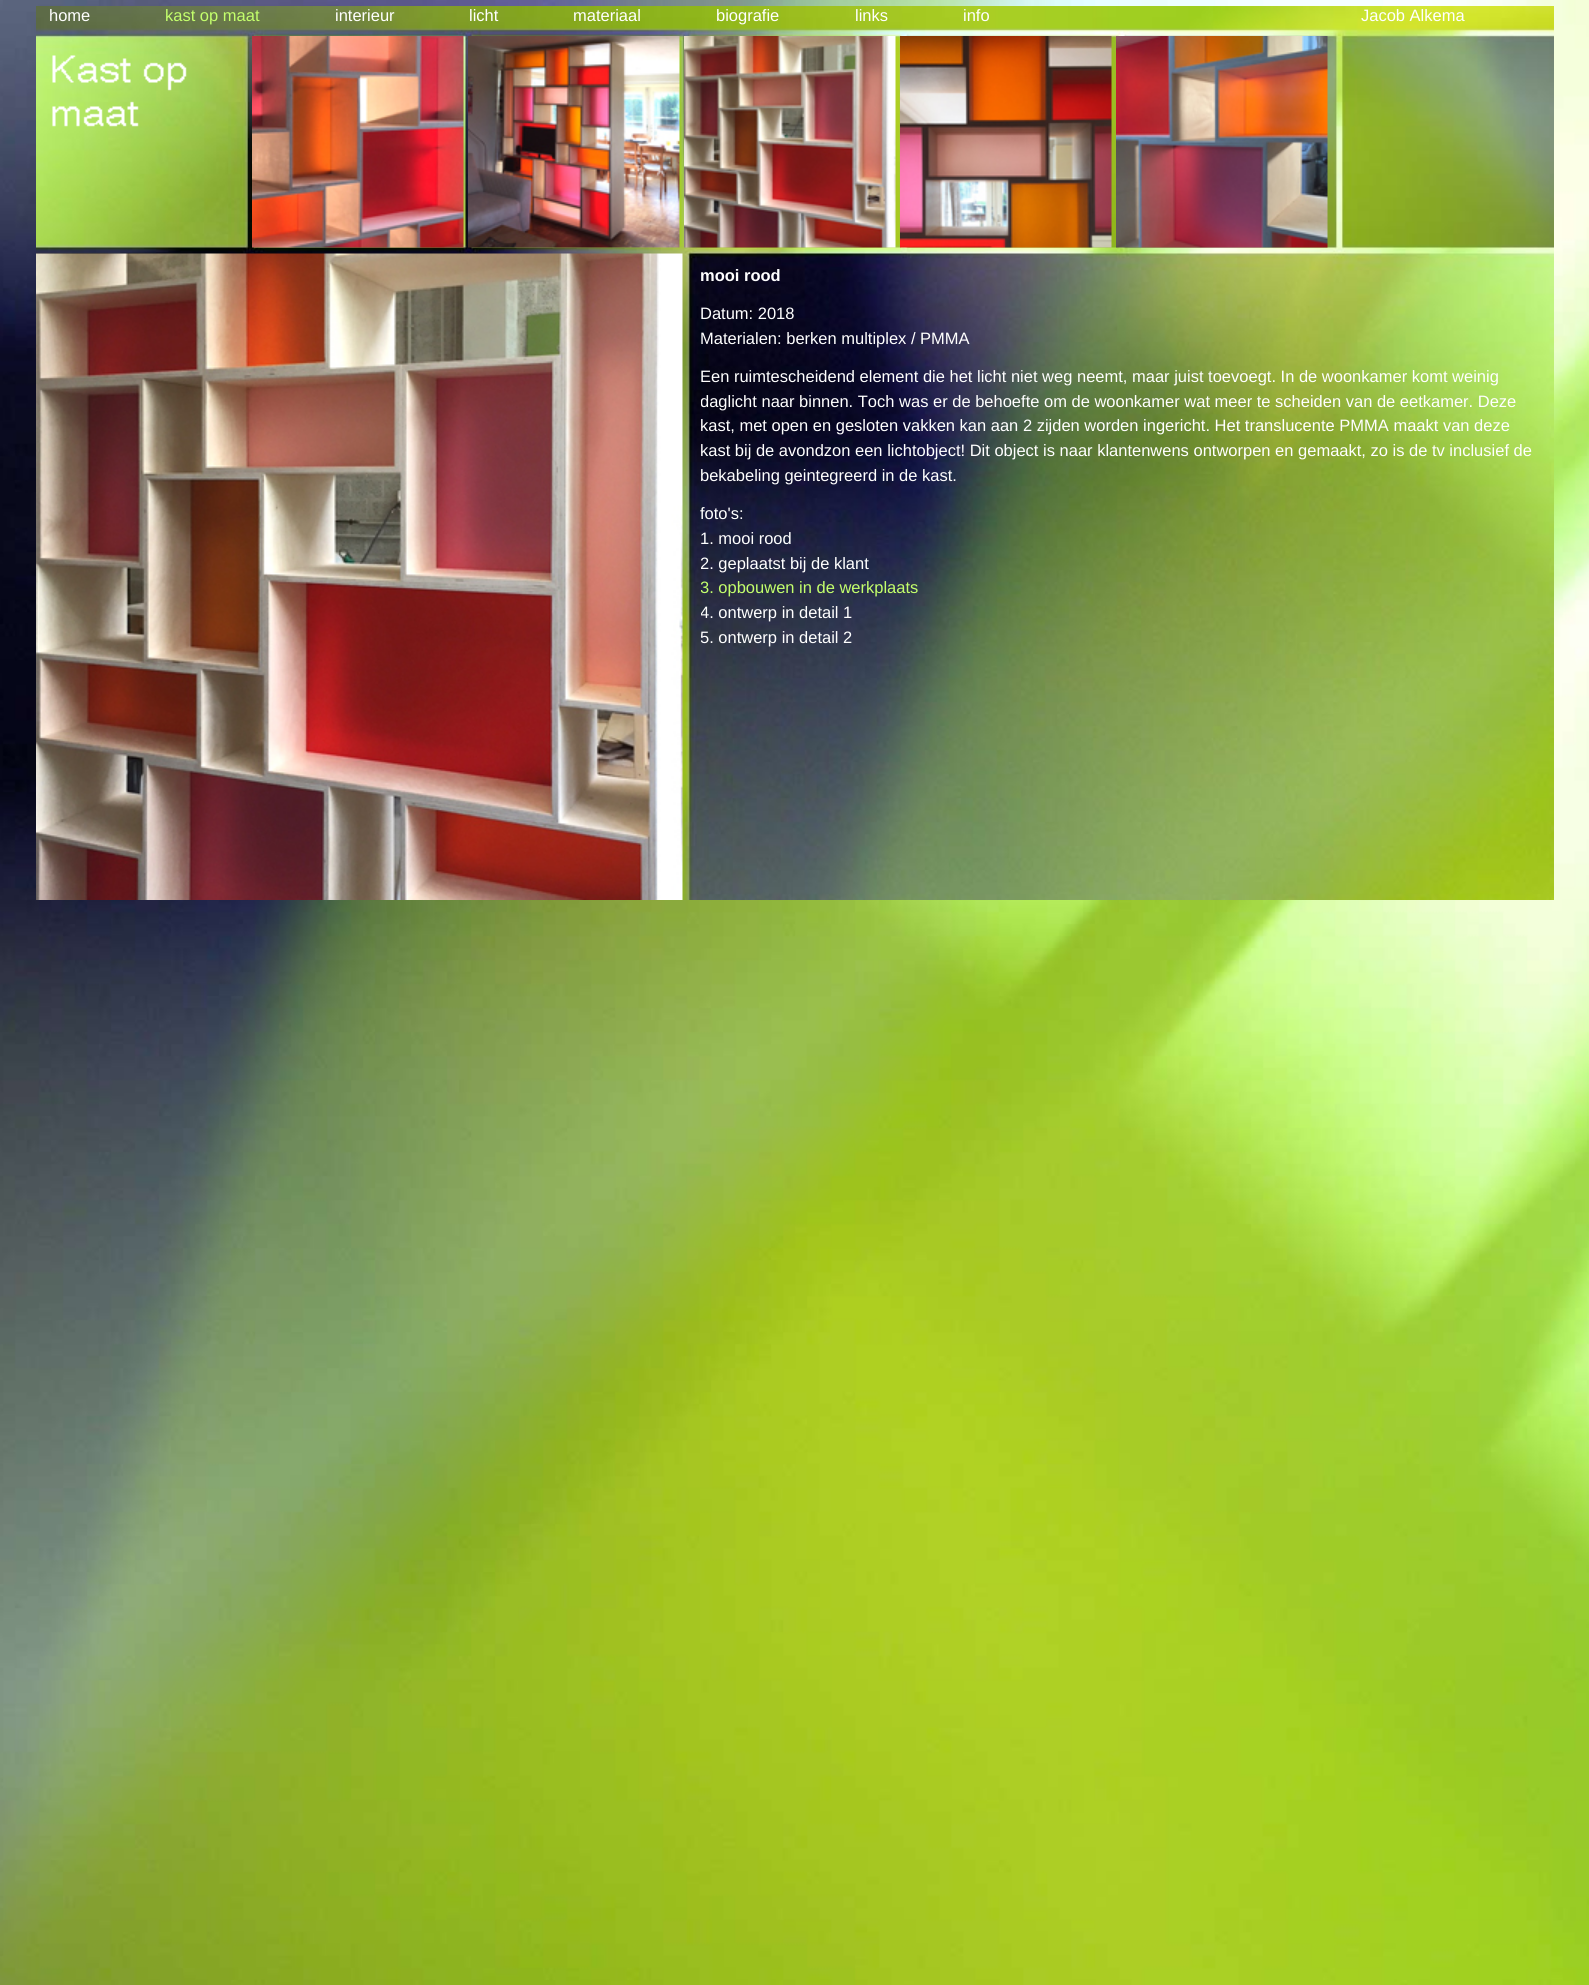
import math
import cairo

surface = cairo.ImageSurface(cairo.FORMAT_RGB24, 1589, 1985)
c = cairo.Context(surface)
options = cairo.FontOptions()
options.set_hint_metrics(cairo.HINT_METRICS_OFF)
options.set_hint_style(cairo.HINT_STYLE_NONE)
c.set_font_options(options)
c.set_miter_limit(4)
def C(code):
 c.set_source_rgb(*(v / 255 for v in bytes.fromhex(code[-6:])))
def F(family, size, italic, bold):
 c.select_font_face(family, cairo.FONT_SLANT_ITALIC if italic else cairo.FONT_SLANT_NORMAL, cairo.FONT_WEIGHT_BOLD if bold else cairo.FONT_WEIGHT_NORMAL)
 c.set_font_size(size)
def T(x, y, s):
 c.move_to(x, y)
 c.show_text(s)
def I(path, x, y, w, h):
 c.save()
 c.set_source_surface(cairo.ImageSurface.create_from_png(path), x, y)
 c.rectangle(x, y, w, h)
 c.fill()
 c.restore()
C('ffffff')
c.paint()
I('1.png',0,0,1589,1985)
I('2.png',36,6,1518,894)
F('Liberation Sans',16.5,0,0)
C('ffffff')
T(49,21,'home')
C('c3ff6c')
T(165,21,'kast op maat')
C('ffffff')
T(335,21,'interieur')
T(469,21,'licht')
T(573,21,'materiaal')
T(716,21,'biografie')
T(855,21,'links')
T(963,21,'info')
T(1361,21,'Jacob Alkema')
I('3.png',52,55,135,72)
I('4.png',252,36,212,212)
I('5.png',468,36,212,212)
I('6.png',684,36,212,212)
I('7.png',900,36,212,212)
I('8.png',1116,36,212,212)
I('9.png',36,253,647,647)
c.save()
c.rectangle(701,254,852,646)
c.clip()
F('Liberation Sans',16.5,0,1)
T(700,281,'mooi rood')
c.restore()
T(700,319,'Datum: 2018')
T(700,344,'Materialen: berken multiplex / PMMA')
T(700,382,'Een ruimtescheidend element die het licht niet weg neemt, maar juist toevoegt. In de woonkamer komt weinig')
c.save()
c.rectangle(701,254,852,646)
c.clip()
T(700,407,'daglicht naar binnen. Toch was er de behoefte om de woonkamer wat meer te scheiden van de eetkamer. Deze')
T(700,431,'kast, met open en gesloten vakken kan aan 2 zijden worden ingericht. Het translucente PMMA maakt van deze')
T(700,456,'kast bij de avondzon een lichtobject! Dit object is naar klantenwens ontworpen en gemaakt, zo is de tv inclusief de')
T(700,481,'bekabeling geintegreerd in de kast.')
c.restore()
T(700,519,'foto\'s:')
T(700,544,'1. mooi rood')
c.save()
c.rectangle(701,254,852,646)
c.clip()
T(700,569,'2. geplaatst bij de klant')
C('c3ff6c')
T(700,593,'3. opbouwen in de werkplaats')
C('ffffff')
T(700,618,'4. ontwerp in detail 1')
T(700,643,'5. ontwerp in detail 2')
c.restore()
surface.write_to_png('o.png')
